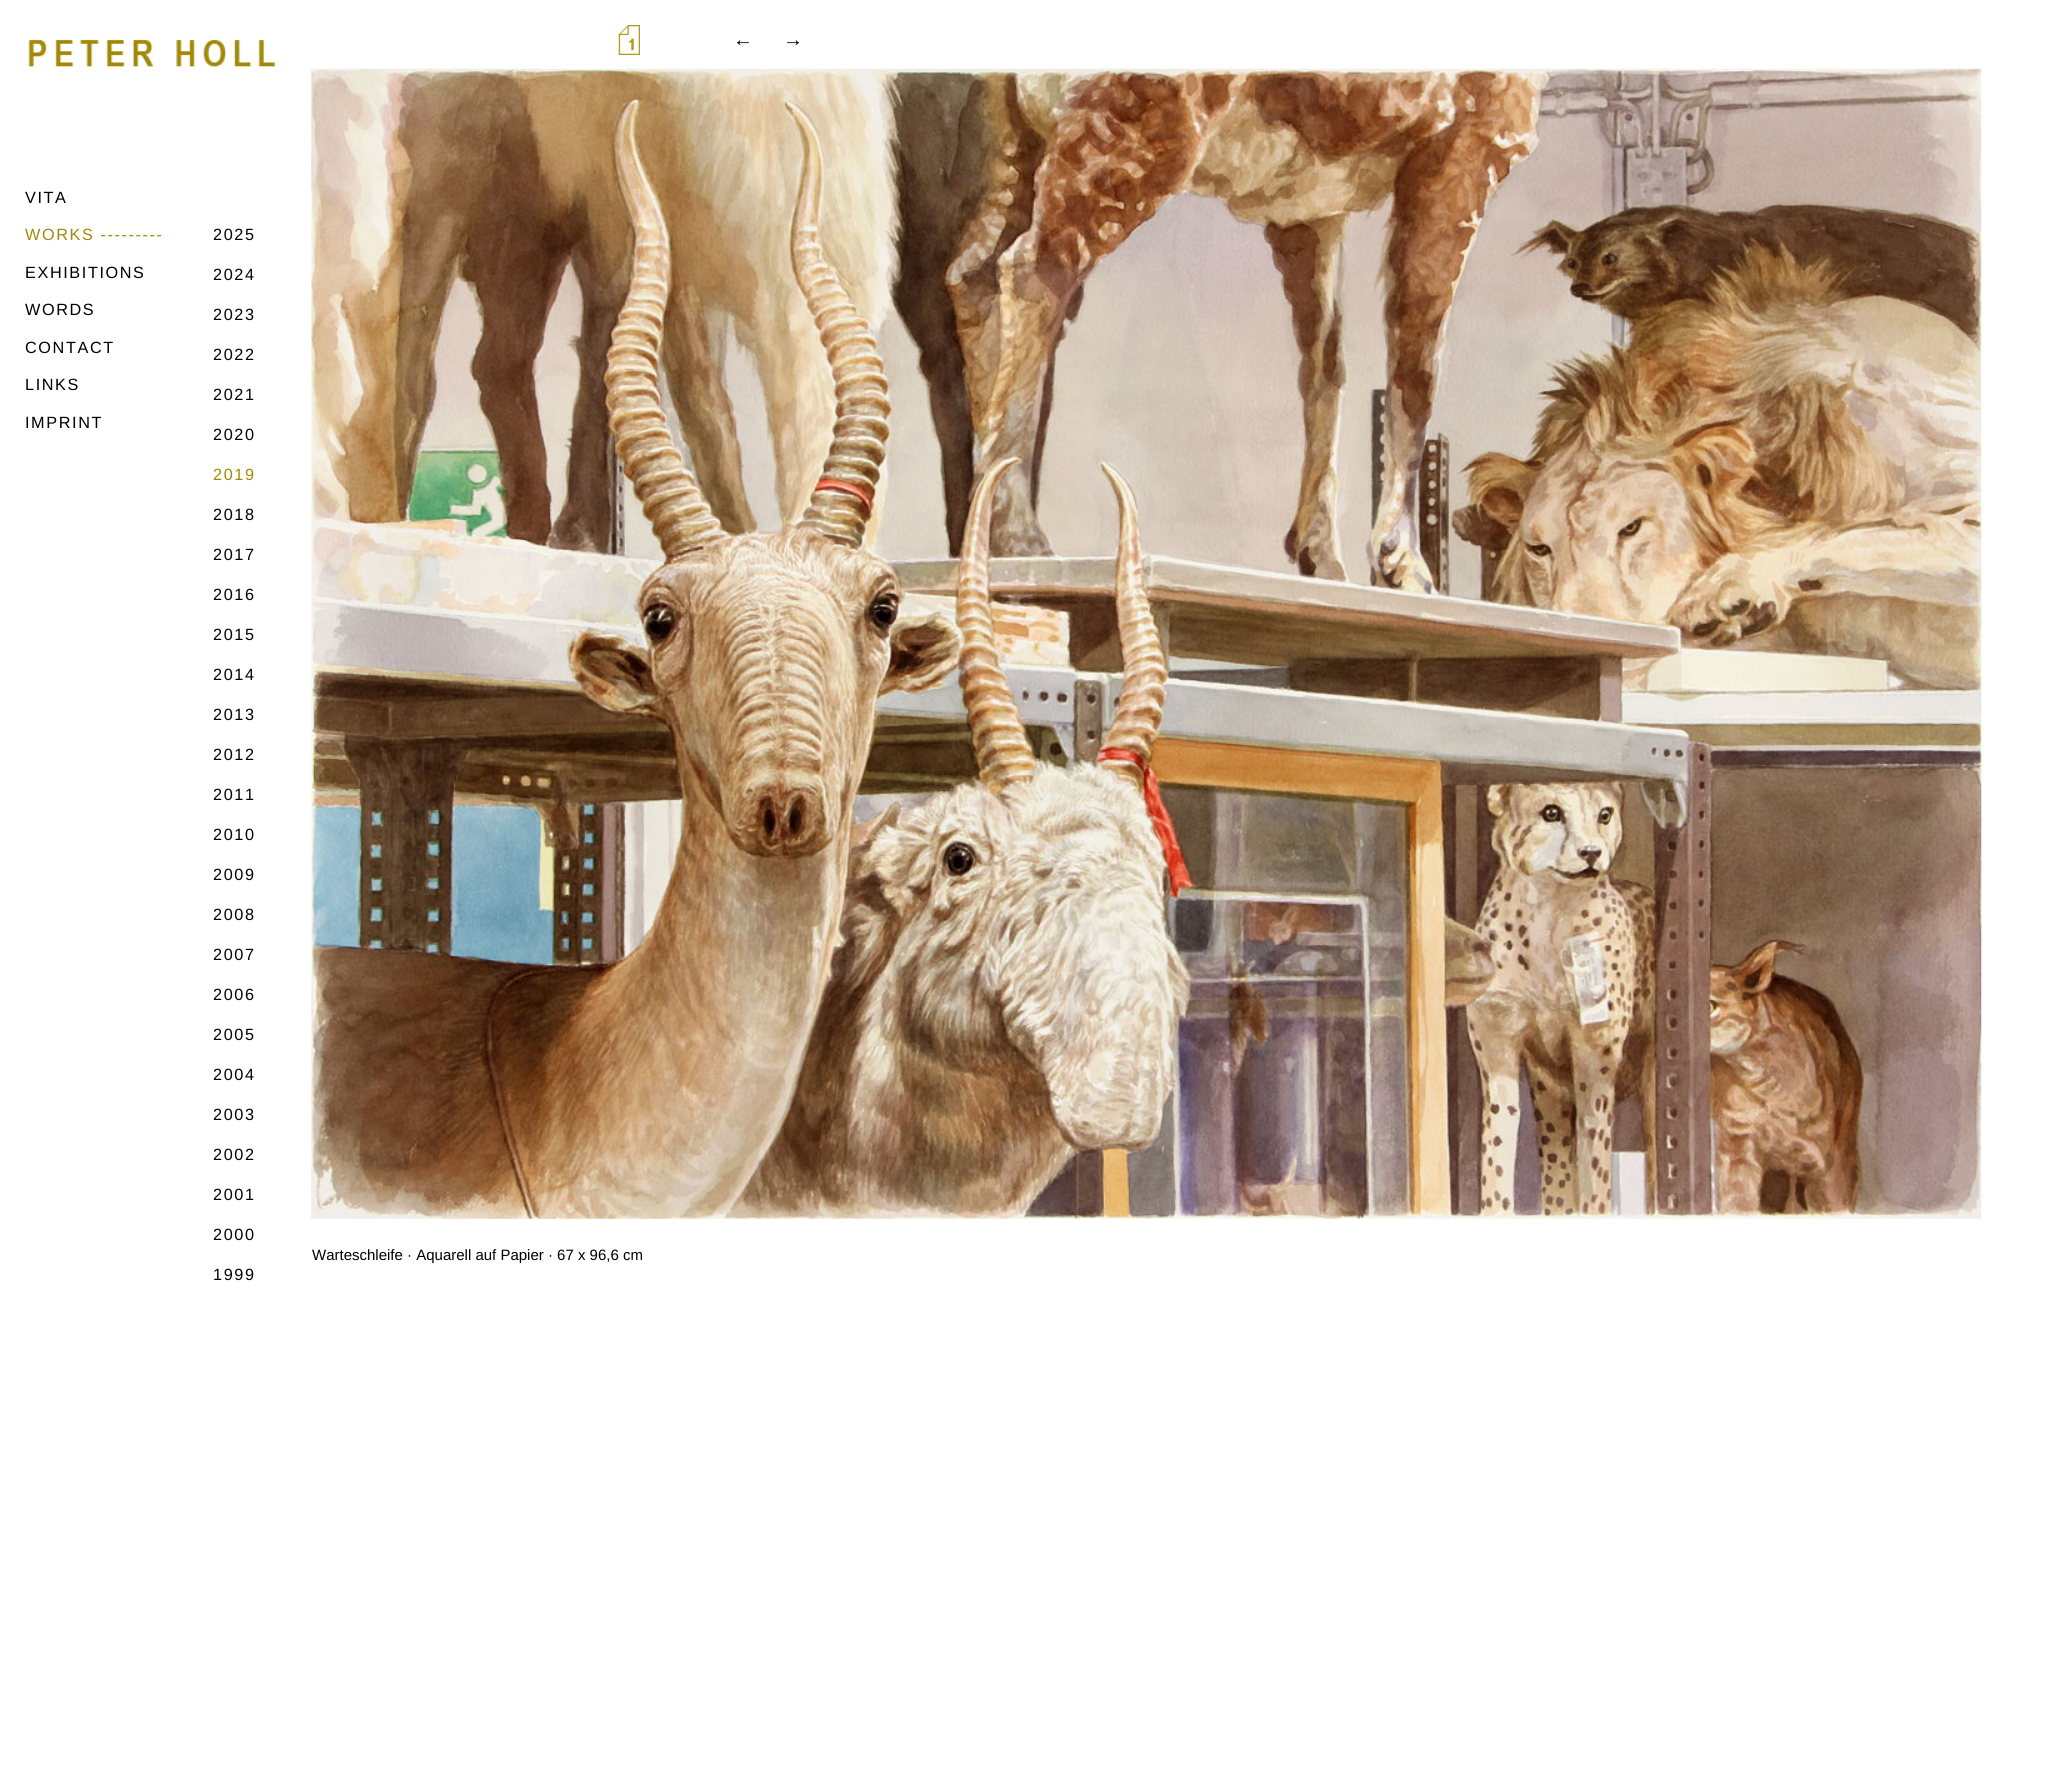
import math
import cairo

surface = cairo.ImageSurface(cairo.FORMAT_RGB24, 2056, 1788)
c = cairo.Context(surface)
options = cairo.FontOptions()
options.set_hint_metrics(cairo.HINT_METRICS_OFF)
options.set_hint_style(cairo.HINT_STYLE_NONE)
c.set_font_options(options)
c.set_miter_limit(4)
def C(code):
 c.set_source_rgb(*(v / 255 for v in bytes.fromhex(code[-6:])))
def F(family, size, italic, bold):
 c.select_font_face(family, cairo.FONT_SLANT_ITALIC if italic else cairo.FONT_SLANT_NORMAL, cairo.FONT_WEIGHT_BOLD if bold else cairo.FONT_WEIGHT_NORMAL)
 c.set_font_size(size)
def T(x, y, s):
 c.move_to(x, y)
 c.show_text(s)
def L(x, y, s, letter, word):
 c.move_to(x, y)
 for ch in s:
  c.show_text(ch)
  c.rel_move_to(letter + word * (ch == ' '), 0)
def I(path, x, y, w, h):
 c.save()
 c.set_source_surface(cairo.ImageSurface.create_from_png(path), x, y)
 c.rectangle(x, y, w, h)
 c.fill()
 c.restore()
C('ffffff')
c.paint()
I('1.png',28,39,248,28)
I('2.png',618,25,22,30)
F('Liberation Sans',20,0,0)
C('000000')
T(733,46,'←')
T(783,46,'→')
F('Liberation Sans',16.25,0,0)
L(25,203,'VITA',1.6,0)
C('a18907')
L(25,240,'WORKS ---------',1.6,0)
C('000000')
L(213,240,'2025',1.6,0)
L(213,280,'2024',1.6,0)
L(213,320,'2023',1.6,0)
L(213,360,'2022',1.6,0)
L(213,400,'2021',1.6,0)
L(213,440,'2020',1.6,0)
C('a18907')
L(213,480,'2019',1.6,0)
C('000000')
L(213,520,'2018',1.6,0)
L(213,560,'2017',1.6,0)
L(213,600,'2016',1.6,0)
L(213,640,'2015',1.6,0)
L(213,680,'2014',1.6,0)
L(213,720,'2013',1.6,0)
L(213,760,'2012',1.6,0)
L(213,800,'2011',1.6,0)
L(213,840,'2010',1.6,0)
L(213,880,'2009',1.6,0)
L(213,920,'2008',1.6,0)
L(213,960,'2007',1.6,0)
L(213,1000,'2006',1.6,0)
L(213,1040,'2005',1.6,0)
L(213,1080,'2004',1.6,0)
L(213,1120,'2003',1.6,0)
L(213,1160,'2002',1.6,0)
L(213,1200,'2001',1.6,0)
L(213,1240,'2000',1.6,0)
L(213,1280,'1999',1.6,0)
L(25,278,'EXHIBITIONS',1.6,0)
L(25,315,'WORDS',1.6,0)
L(25,353,'CONTACT',1.6,0)
L(25,390,'LINKS',1.6,0)
L(25,428,'IMPRINT',1.6,0)
I('3.png',311,68,1671,1151)
F('Liberation Sans',15,0,0)
T(312,1260,'Warteschleife · Aquarell auf Papier · 67 x 96,6 cm')
surface.write_to_png('o.png')
